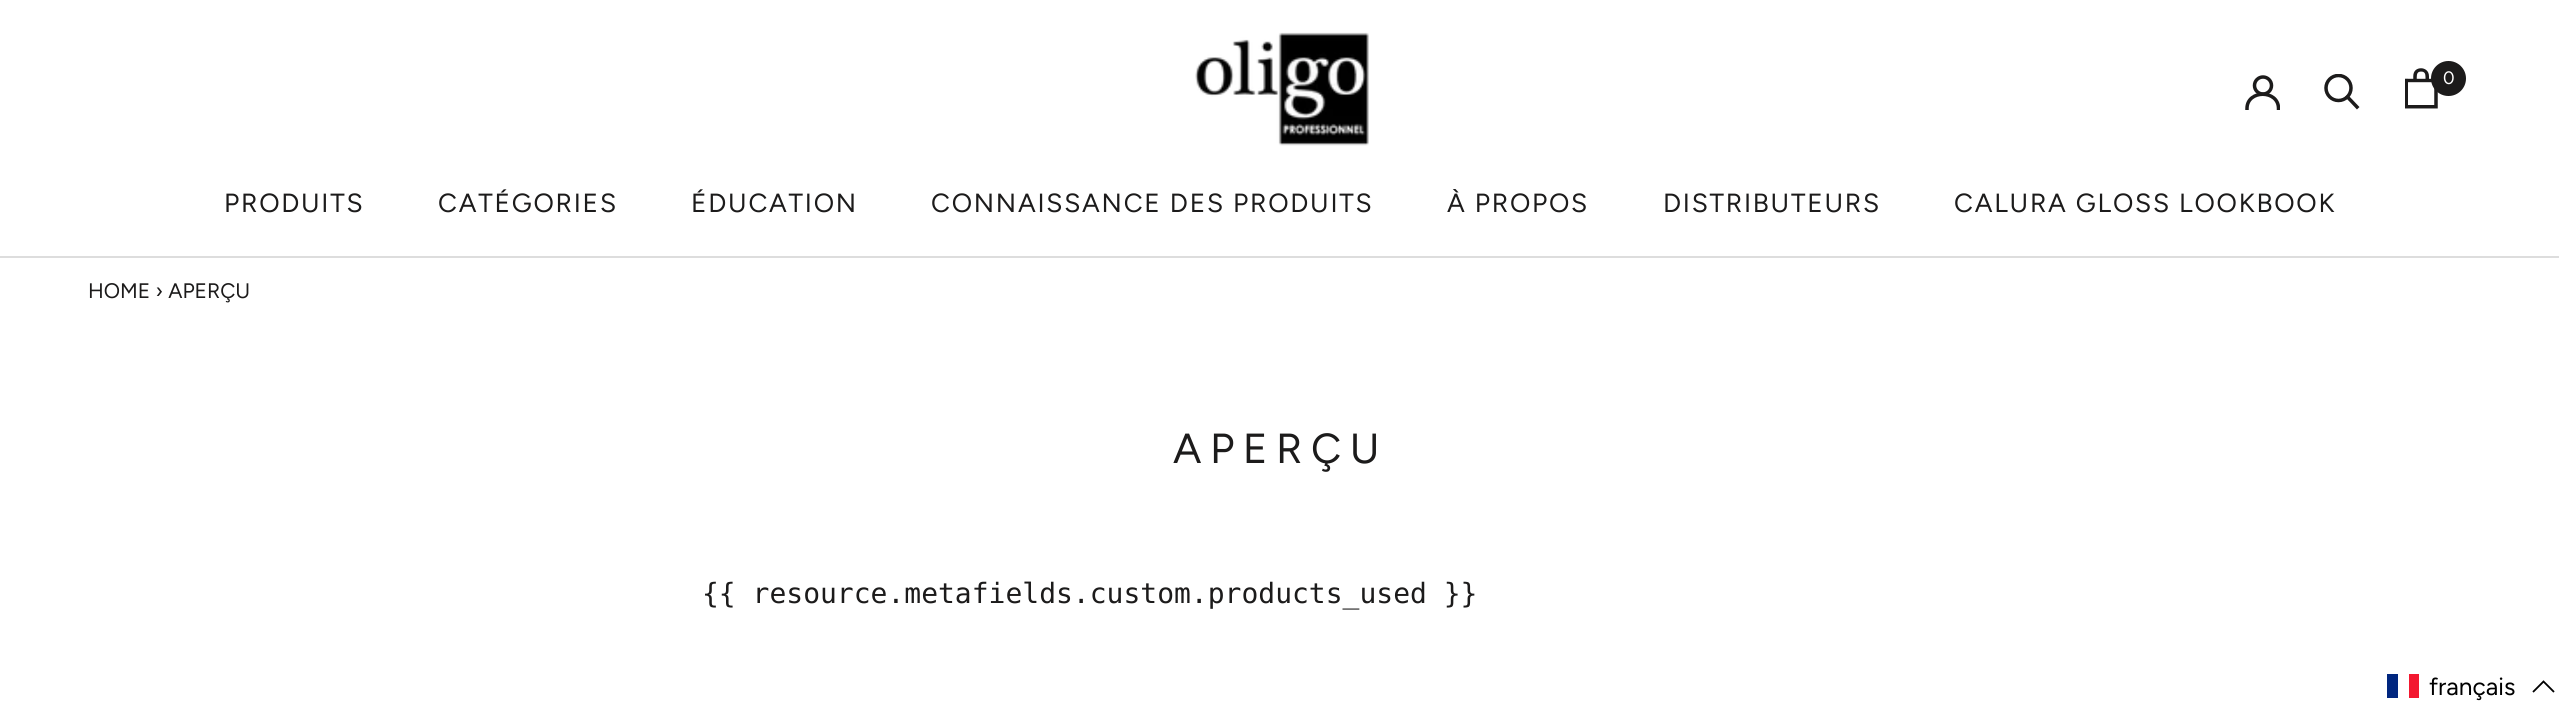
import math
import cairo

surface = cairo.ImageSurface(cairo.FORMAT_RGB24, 2559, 706)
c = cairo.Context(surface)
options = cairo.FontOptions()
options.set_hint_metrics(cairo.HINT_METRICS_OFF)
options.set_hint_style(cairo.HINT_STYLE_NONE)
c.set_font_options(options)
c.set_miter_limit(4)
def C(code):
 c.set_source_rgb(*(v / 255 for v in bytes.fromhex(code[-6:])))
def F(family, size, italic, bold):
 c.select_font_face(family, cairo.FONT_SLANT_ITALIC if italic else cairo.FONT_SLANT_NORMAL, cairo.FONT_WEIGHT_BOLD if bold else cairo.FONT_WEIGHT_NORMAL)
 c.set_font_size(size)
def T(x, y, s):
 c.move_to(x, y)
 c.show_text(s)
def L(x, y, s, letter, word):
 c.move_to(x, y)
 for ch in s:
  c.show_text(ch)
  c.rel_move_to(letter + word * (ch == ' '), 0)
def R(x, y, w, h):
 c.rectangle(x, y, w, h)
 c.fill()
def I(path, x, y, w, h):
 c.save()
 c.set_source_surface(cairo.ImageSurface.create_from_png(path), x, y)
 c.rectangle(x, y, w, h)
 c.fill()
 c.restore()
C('ffffff')
c.paint()
C('dddddd')
R(0,256,2559,2)
I('1.png',1195,32,174,114)
c.save()
c.rectangle(2245,75,35,35)
c.clip()
c.new_path()
c.move_to(2247,108.5)
c.curve_to(2247,89.5,2278.5,89.5,2278.5,108.5)
C('1c1b1b')
c.set_line_width(3.5)
c.set_line_cap(cairo.LINE_CAP_SQUARE)
c.stroke()
c.restore()
c.arc(2263,85.5,8.5,0,2 * math.pi)
C('1c1b1b')
c.set_line_width(3.5)
c.stroke()
c.new_path()
c.move_to(2357,107)
c.line_to(2347.5,97)
c.set_line_cap(cairo.LINE_CAP_SQUARE)
c.stroke()
c.save()
c.rectangle(2324,74,37,36)
c.clip()
c.arc(2338.5,88,12.5,0,2 * math.pi)
c.set_line_cap(cairo.LINE_CAP_BUTT)
c.stroke()
c.restore()
I('2.png',2405,68,33,41)
c.arc(2448.5,78.5,17.5,0,2 * math.pi)
c.fill()
F('Figtree',18,0,0)
C('ffffff')
T(2443,84,'0')
F('Figtree',26.25,0,0)
C('1c1b1b')
L(224,212,'PRODUITS',1.75,0)
L(438,212,'CATÉGORIES',1.75,0)
L(691,212,'ÉDUCATION',1.75,0)
L(931,212,'CONNAISSANCE DES PRODUITS',1.75,0)
L(1447,212,'À PROPOS',1.75,0)
L(1663,212,'DISTRIBUTEURS',1.75,0)
L(1954,212,'CALURA GLOSS LOOKBOOK',1.75,0)
F('Figtree',21,0,0)
T(88,298,'HOME › APERÇU')
F('Figtree',42,0,0)
L(1173,463,'APERÇU',8.5,0)
F('DejaVu Sans Mono',28,0,0)
T(702,603,'{{ resource.metafields.custom.products_used }}')
C('00267f')
R(2387,674,11,24)
C('f31830')
R(2409,674,10,24)
F('Figtree',24.5,0,0)
C('000000')
T(2429,695,'français')
c.new_path()
c.move_to(2554,692)
c.line_to(2543.5,681.5)
c.line_to(2533,692)
c.set_line_width(1.8)
c.set_line_cap(cairo.LINE_CAP_BUTT)
c.stroke()
surface.write_to_png('o.png')
